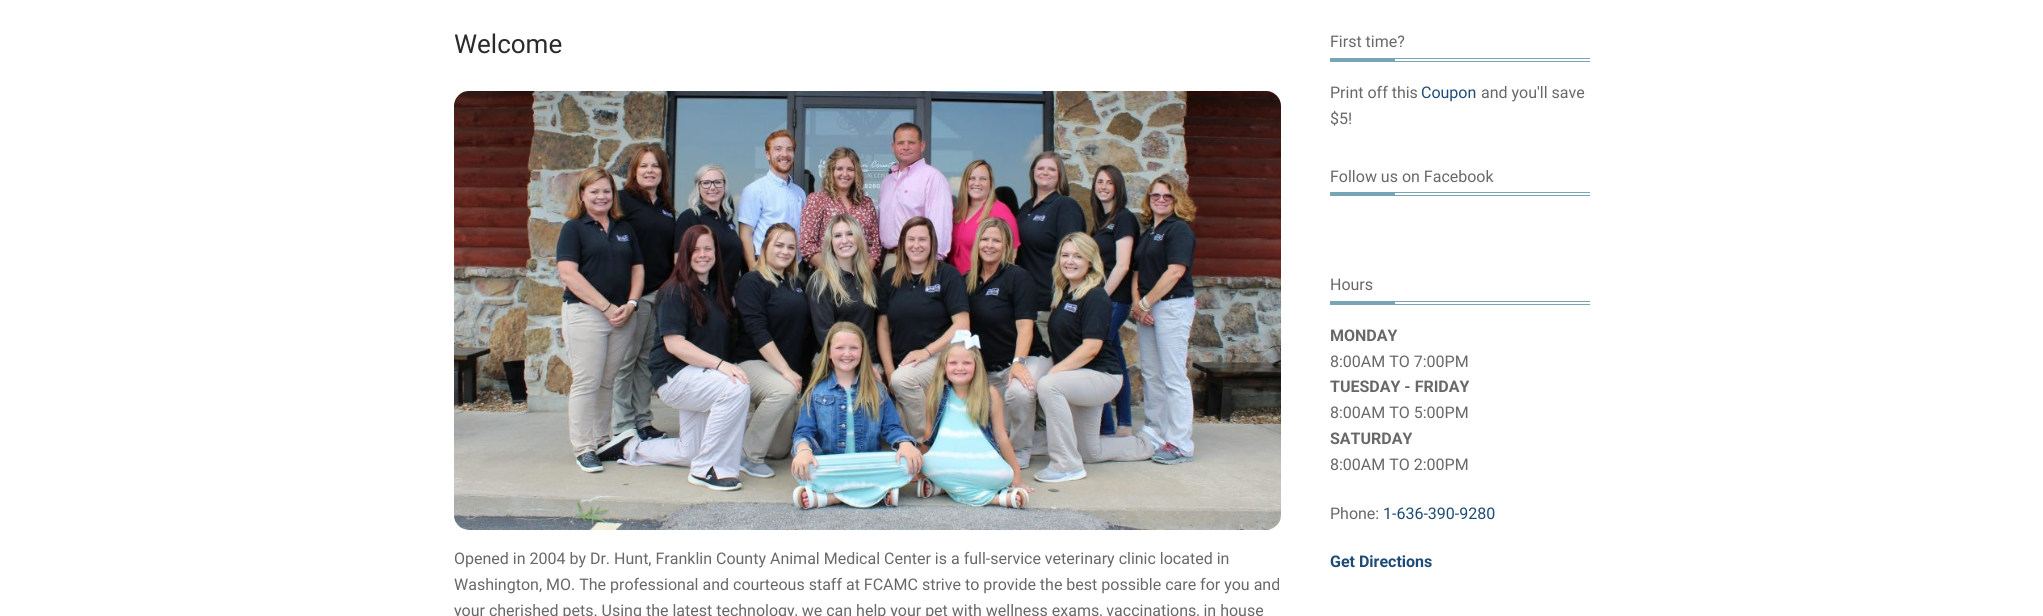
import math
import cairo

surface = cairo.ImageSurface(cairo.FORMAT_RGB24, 2043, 616)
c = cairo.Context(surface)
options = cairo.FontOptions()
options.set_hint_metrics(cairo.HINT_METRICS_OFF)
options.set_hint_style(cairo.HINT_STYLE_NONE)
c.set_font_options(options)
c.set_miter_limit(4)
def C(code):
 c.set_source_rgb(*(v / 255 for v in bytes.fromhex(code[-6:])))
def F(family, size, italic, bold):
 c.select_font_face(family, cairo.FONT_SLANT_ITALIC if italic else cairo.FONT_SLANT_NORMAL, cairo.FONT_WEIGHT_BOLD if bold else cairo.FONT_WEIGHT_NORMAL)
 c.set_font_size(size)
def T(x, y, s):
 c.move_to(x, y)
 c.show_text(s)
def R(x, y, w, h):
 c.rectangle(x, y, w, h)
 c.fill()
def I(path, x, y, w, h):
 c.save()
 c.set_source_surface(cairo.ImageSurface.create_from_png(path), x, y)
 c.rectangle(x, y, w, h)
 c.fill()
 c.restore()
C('ffffff')
c.paint()
F('Roboto',26,0,0)
C('2b2b2b')
T(454,53,'Welcome')
I('1.png',454,91,827,439)
F('Roboto',16,0,0)
C('686868')
T(454,564,'Opened in 2004 by Dr. Hunt, Franklin County Animal Medical Center is a full-service veterinary clinic located in')
T(454,590,'Washington, MO. The professional and courteous staff at FCAMC strive to provide the best possible care for you and')
T(454,616,'your cherished pets. Using the latest technology, we can help your pet with wellness exams, vaccinations, in house')
T(1330,47,'First time?')
C('78a5b6')
R(1330,58,260,1)
R(1330,61,260,1)
R(1330,59,65,2)
C('686868')
T(1330,98,'Print off this')
C('1e4b75')
T(1421,98,'Coupon')
C('686868')
T(1481,98,'and you\'ll save')
T(1330,124,'$5!')
T(1330,182,'Follow us on Facebook')
C('78a5b6')
R(1330,192,260,1)
R(1330,195,260,1)
R(1330,193,65,2)
C('686868')
T(1330,290,'Hours')
C('78a5b6')
R(1330,301,260,1)
R(1330,304,260,1)
R(1330,302,65,2)
F('Roboto',16,0,1)
C('686868')
T(1330,341,'MONDAY')
F('Roboto',16,0,0)
T(1330,367,'8:00AM TO 7:00PM')
F('Roboto',16,0,1)
T(1330,392,'TUESDAY - FRIDAY')
F('Roboto',16,0,0)
T(1330,418,'8:00AM TO 5:00PM')
F('Roboto',16,0,1)
T(1330,444,'SATURDAY')
F('Roboto',16,0,0)
T(1330,470,'8:00AM TO 2:00PM')
T(1330,519,'Phone:')
C('1e4b75')
T(1383,519,'1-636-390-9280')
F('Roboto',16,0,1)
T(1330,567,'Get Directions')
surface.write_to_png('o.png')
